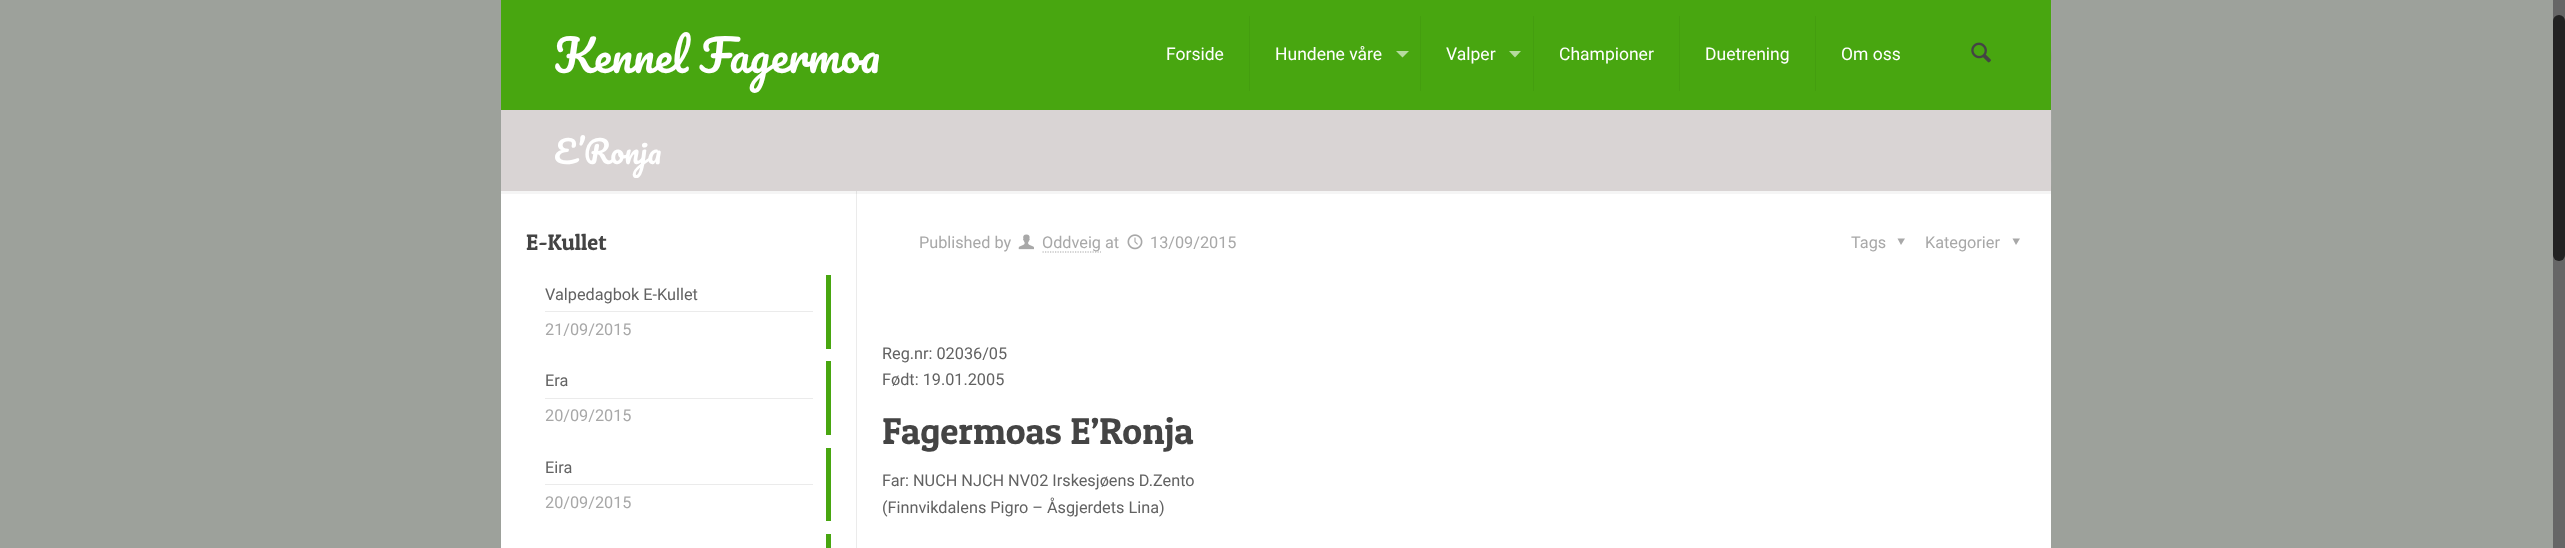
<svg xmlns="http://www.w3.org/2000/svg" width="2565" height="548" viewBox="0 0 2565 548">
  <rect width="100%" height="100%" fill="#9da19b"/>
  <path d="M501 191h1550v357H501z" fill="#fff"/>
  <image x="2051" y="0" width="1" height="191" href="img/1.png"/>
  <path d="M501 0h1550v110H501z" fill="#48a610"/>
  <path d="M1249 16h1v75H1249z" fill="#449e0f"/>
  <path d="M1420 16h1v75H1420z" fill="#449e0f"/>
  <path d="M1396 51H1409L1402.5 57.5Z" fill="#b6db9f"/>
  <path d="M1533 16h1v75H1533z" fill="#449e0f"/>
  <path d="M1509 51H1521L1515 57.5Z" fill="#b6db9f"/>
  <path d="M1679 16h1v75H1679z" fill="#449e0f"/>
  <path d="M1815 16h1v75H1815z" fill="#449e0f"/>
  <image x="1971" y="42" width="20" height="21" href="img/2.png"/>
  <path d="M501 110h1550v81H501z" fill="#d9d4d4"/>
  <path d="M856 191h1v357H856z" fill="#ebebeb"/>
  <path d="M501 191h1550v3H501z" fill="#0000000a"/>
  <path d="M545 311h268v1H545z" fill="#ebebeb"/>
  <path d="M826 275h5v74H826z" fill="#48a610"/>
  <path d="M545 398h268v1H545z" fill="#ebebeb"/>
  <path d="M826 361h5v74H826z" fill="#48a610"/>
  <path d="M545 484h268v1H545z" fill="#ebebeb"/>
  <path d="M826 448h5v73H826z" fill="#48a610"/>
  <path d="M826 534h5v14H826z" fill="#48a610"/>
  <image x="1018" y="234" width="16" height="16" href="img/3.png"/>
  <path d="M1042.5 252H1101" fill="none" stroke="#a8a8a8" stroke-width="1.2" stroke-dasharray="1.25 1.25"/>
  <image x="1127" y="234" width="16" height="16" href="img/4.png"/>
  <path d="M1905 238.5L1901 245L1897.5 238.5Z" fill="#a8a8a8"/>
  <path d="M2020 238.5L2016 245L2012.5 238.5Z" fill="#a8a8a8"/>
  <path d="M2553 0h12v548H2553z" fill="#666"/>
  <rect x="2553" y="15" width="12" height="246" rx="6" fill="#222"/>
  <text x="554" y="73" font-family="Pacifico" font-size="43.75" fill="#fff">Kennel Fagermoa</text>
  <g font-family="Roboto" font-size="17.5" fill="#fff">
    <text x="1166" y="60">Forside</text>
    <text x="1275" y="60">Hundene våre</text>
    <text x="1446" y="60">Valper</text>
    <text x="1559" y="60">Championer</text>
    <text x="1705" y="60">Duetrening</text>
    <text x="1841" y="60">Om oss</text>
  </g>
  <text x="554" y="164" font-family="Pacifico" font-size="31" fill="#fff">E’Ronja</text>
  <text x="526" y="250" font-family="Patua One" font-size="22.5" fill="#444">E-Kullet</text>
  <text x="545" y="300" font-family="Roboto" font-size="16.25" fill="#626262">Valpedagbok E-Kullet</text>
  <text x="545" y="335" font-family="Roboto" font-size="16.25" fill="#a8a8a8">21/09/2015</text>
  <text x="545" y="386" font-family="Roboto" font-size="16.25" fill="#626262">Era</text>
  <text x="545" y="421" font-family="Roboto" font-size="16.25" fill="#a8a8a8">20/09/2015</text>
  <text x="545" y="473" font-family="Roboto" font-size="16.25" fill="#626262">Eira</text>
  <g font-family="Roboto" font-size="16.25" fill="#a8a8a8">
    <text x="545" y="508">20/09/2015</text>
    <text x="919" y="248">Published by</text>
    <text x="1042" y="248">Oddveig at</text>
    <text x="1150" y="248">13/09/2015</text>
    <text x="1851" y="248">Tags</text>
    <text x="1925" y="248">Kategorier</text>
  </g>
  <g font-family="Roboto" font-size="16.25" fill="#626262">
    <text x="882" y="359">Reg.nr: 02036/05</text>
    <text x="882" y="385">Født: 19.01.2005</text>
  </g>
  <text x="882" y="444" font-family="Patua One" font-size="37.5" fill="#444">Fagermoas E’Ronja</text>
  <g font-family="Roboto" font-size="16.25" fill="#626262">
    <text x="882" y="486">Far: NUCH NJCH NV02 Irskesjøens D.Zento</text>
    <text x="882" y="513">(Finnvikdalens Pigro – Åsgjerdets Lina)</text>
  </g>
</svg>
